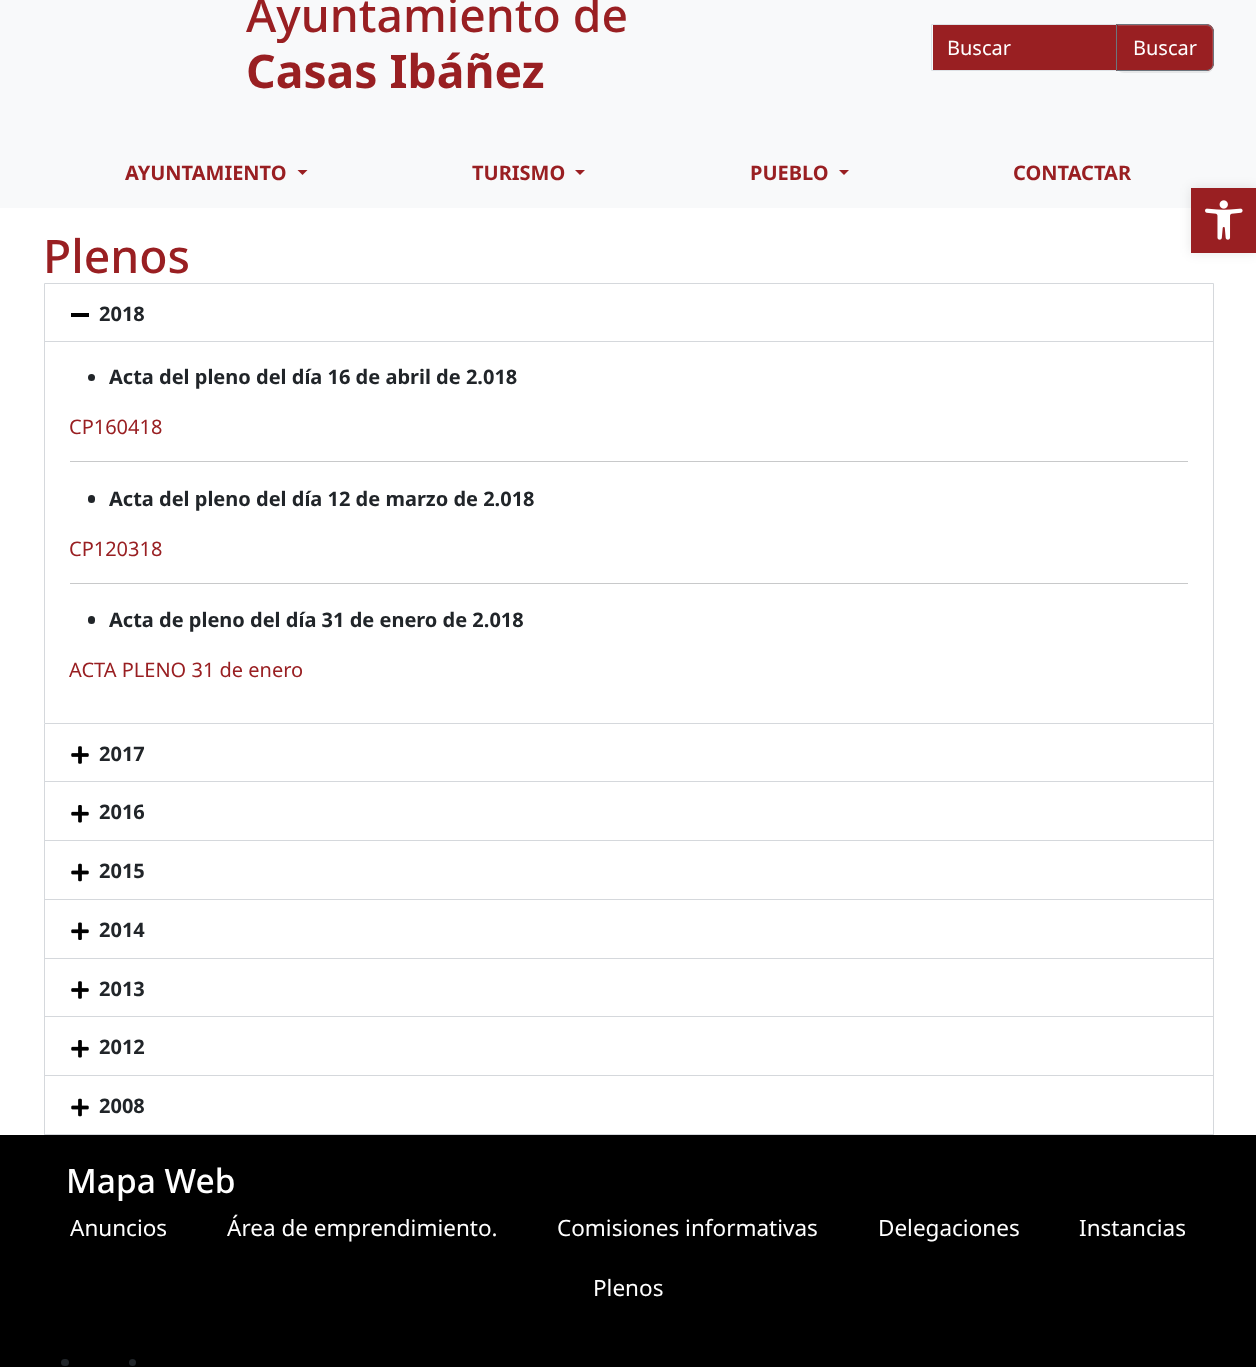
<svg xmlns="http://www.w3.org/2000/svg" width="1256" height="1367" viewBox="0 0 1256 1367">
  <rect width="100%" height="100%" fill="#fff"/>
  <path d="M0 0h1256v208H0z" fill="#f8f9fa"/>
  <path d="M933 25h183v45H933z" fill="#991f22"/>
  <path d="M931.5 24.5h186v46H931.5z" fill="none" stroke="#dee2e6"/>
  <rect x="1116" y="25" width="98" height="48" rx="8" fill="#00000012" filter="blur(0.5px)"/>
  <path d="M1116 24H1206C1210.5 24 1214 27.5 1214 32V63C1214 67.5 1210.5 71 1206 71H1116Z" fill="#991f22"/>
  <path d="M1118 26H1206C1210 26 1212 29 1212 32V65C1212 66 1212 67 1211 68C1212 67 1213 66 1213 64V31C1213 28 1210 25 1207 25H1118Z" fill="#a84143"/>
  <path d="M1116.5 24.5H1206C1210 24.5 1213.5 28 1213.5 32V63C1213.5 67 1210 70.5 1206 70.5H1116.5Z" fill="none" stroke="#6c757d"/>
  <path d="M297.5 170H307.5L302.5 175Z" fill="#991f22"/>
  <path d="M575 170H585L580 175Z" fill="#991f22"/>
  <path d="M839 170H849L844 175Z" fill="#991f22"/>
  <path d="M44.5 283.5h1169v440H44.5z" fill="none" stroke="#d5d8dc"/>
  <path d="M71 313h18v4H71z" fill="#000"/>
  <path d="M45 341h1168v1H45z" fill="#d5d8dc"/>
  <circle cx="91.5" cy="377.5" r="3.5" fill="#212529"/>
  <path d="M70 461h1118v1H70z" fill="#c8c9ca"/>
  <rect x="88" y="495" width="7" height="8" rx="3.5" fill="#212529"/>
  <path d="M70 583h1118v1H70z" fill="#c8c9ca"/>
  <rect x="88" y="616" width="7" height="8" rx="3.5" fill="#212529"/>
  <path d="M1213 724h1v411H1213z" fill="#d5d8dc"/>
  <path d="M44 781h1170v1H44z" fill="#d5d8dc"/>
  <path d="M44 724h1v59H44z" fill="#d5d8dc"/>
  <image x="71" y="746" width="18" height="18" href="img/1.png"/>
  <path d="M44 840h1170v1H44z" fill="#d5d8dc"/>
  <path d="M44 783h1v58H44z" fill="#d5d8dc"/>
  <image x="71" y="805" width="18" height="18" href="img/2.png"/>
  <path d="M44 899h1170v1H44z" fill="#d5d8dc"/>
  <path d="M44 841h1v59H44z" fill="#d5d8dc"/>
  <image x="71" y="863" width="18" height="19" href="img/3.png"/>
  <path d="M44 958h1170v1H44z" fill="#d5d8dc"/>
  <path d="M44 900h1v59H44z" fill="#d5d8dc"/>
  <image x="71" y="922" width="18" height="18" href="img/4.png"/>
  <path d="M44 1016h1170v1H44z" fill="#d5d8dc"/>
  <path d="M44 959h1v59H44z" fill="#d5d8dc"/>
  <image x="71" y="981" width="18" height="18" href="img/1.png"/>
  <path d="M44 1075h1170v1H44z" fill="#d5d8dc"/>
  <path d="M44 1018h1v58H44z" fill="#d5d8dc"/>
  <image x="71" y="1040" width="18" height="18" href="img/2.png"/>
  <path d="M44 1134h1170v1H44z" fill="#d5d8dc"/>
  <path d="M44 1076h1v59H44z" fill="#d5d8dc"/>
  <image x="71" y="1098" width="18" height="19" href="img/3.png"/>
  <path d="M0 1135h1256v232H0z" fill="#000"/>
  <rect x="61" y="1359" width="8" height="7" rx="3.5" fill="#212529"/>
  <circle cx="132.5" cy="1362.5" r="3.5" fill="#212529"/>
  <path d="M1191 188h65v65H1191z" fill="#0000001a" filter="blur(6px)"/>
  <path d="M1191 188h65v65H1191z" fill="#991f22"/>
  <image x="1205" y="200" width="38" height="40" href="img/5.png"/>
  <text x="246" y="32" font-family="Noto Sans" font-size="46.25" font-weight="500" fill="#991f22">Ayuntamiento de</text>
  <text x="246" y="88" font-family="Noto Sans" font-size="46.25" font-weight="bold" fill="#991f22">Casas Ibáñez</text>
  <g font-family="Noto Sans" font-size="20" fill="#fff">
    <text x="947" y="55">Buscar</text>
    <text x="1133" y="55">Buscar</text>
  </g>
  <g font-family="Noto Sans" font-size="20" font-weight="bold" fill="#991f22">
    <text x="125" y="180">AYUNTAMIENTO</text>
    <text x="472" y="180">TURISMO</text>
    <text x="750" y="180">PUEBLO</text>
    <text x="1013" y="180">CONTACTAR</text>
  </g>
  <text x="43" y="273" font-family="Noto Sans" font-size="46.25" font-weight="500" fill="#991f22">Plenos</text>
  <g font-family="Noto Sans" font-size="20" font-weight="bold" fill="#212529">
    <text x="99" y="321">2018</text>
    <text x="109" y="384">Acta del pleno del día 16 de abril de 2.018</text>
  </g>
  <text x="69" y="434" font-family="Noto Sans" font-size="20" fill="#991f22">CP160418</text>
  <text x="109" y="506" font-family="Noto Sans" font-size="20" font-weight="bold" fill="#212529">Acta del pleno del día 12 de marzo de 2.018</text>
  <text x="69" y="556" font-family="Noto Sans" font-size="20" fill="#991f22">CP120318</text>
  <text x="109" y="627" font-family="Noto Sans" font-size="20" font-weight="bold" fill="#212529">Acta de pleno del día 31 de enero de 2.018</text>
  <text x="69" y="677" font-family="Noto Sans" font-size="20" fill="#991f22">ACTA PLENO 31 de enero</text>
  <g font-family="Noto Sans" font-size="20" font-weight="bold" fill="#212529">
    <text x="99" y="761">2017</text>
    <text x="99" y="819">2016</text>
    <text x="99" y="878">2015</text>
    <text x="99" y="937">2014</text>
    <text x="99" y="996">2013</text>
    <text x="99" y="1054">2012</text>
    <text x="99" y="1113">2008</text>
  </g>
  <text x="66" y="1193" font-family="Noto Sans" font-size="33.5" font-weight="500" fill="#fff">Mapa Web</text>
  <g font-family="Noto Sans" font-size="22.5" fill="#fff">
    <text x="70" y="1236">Anuncios</text>
    <text x="227" y="1236">Área de emprendimiento.</text>
    <text x="557" y="1236">Comisiones informativas</text>
    <text x="878" y="1236">Delegaciones</text>
    <text x="1079" y="1236">Instancias</text>
    <text x="593" y="1296">Plenos</text>
  </g>
</svg>
